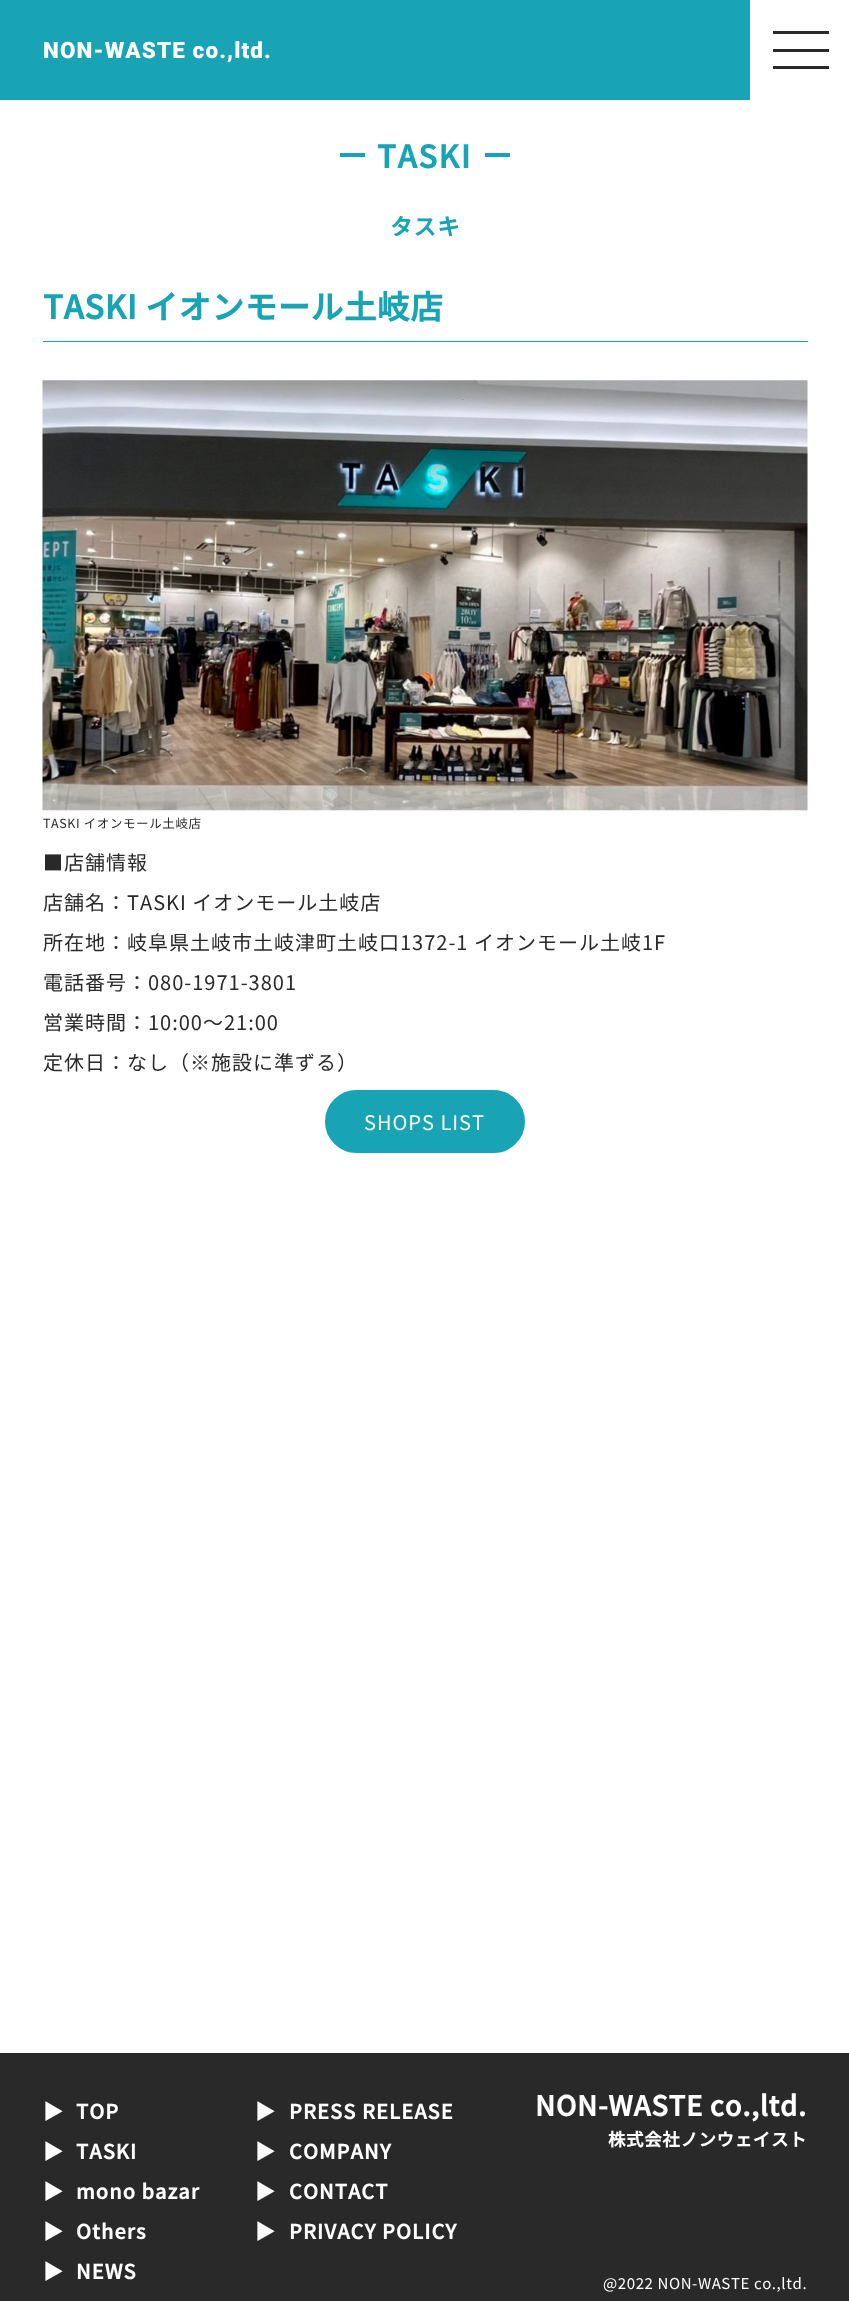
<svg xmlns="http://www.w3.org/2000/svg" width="849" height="2301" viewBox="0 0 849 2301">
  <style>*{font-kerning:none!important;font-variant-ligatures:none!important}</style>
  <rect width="100%" height="100%" fill="#fff"/>
  <path d="M0 0h750v100H0z" fill="#19a4b6"/>
  <path d="M773 31h56v3H773z" fill="#292929"/>
  <path d="M773 49h56v3H773z" fill="#292929"/>
  <path d="M773 66h56v3H773z" fill="#292929"/>
  <path d="M340 153h25v4H340z" fill="#19a4b6"/>
  <path d="M485 153h25v4H485z" fill="#19a4b6"/>
  <path d="M43 341h765v1H43z" fill="#19a4b6"/>
  <image x="42" y="380" width="766" height="431" href="img/1.png"/>
  <rect x="327" y="1092" width="196" height="59" rx="29.5" fill="#19a4b6" stroke="#19a4b6" stroke-width="4"/>
  <path d="M0 2053h849v248H0z" fill="#292929"/>
  <text x="43" y="58" font-family="Roboto" font-size="22.5" font-weight="900" letter-spacing="1.1" fill="#fff">NON-WASTE co.,ltd.</text>
  <text x="377" y="168" font-family="Noto Sans JP" font-size="31" font-weight="bold" letter-spacing="1.5" fill="#19a4b6">TASKI</text>
  <text x="390" y="235" font-family="Noto Sans JP" font-size="22.5" font-weight="bold" letter-spacing="1.1" fill="#19a4b6">タスキ</text>
  <text x="43" y="319" font-family="Noto Sans JP" font-size="32.5" font-weight="bold" letter-spacing="0.6" fill="#19a4b6">TASKI イオンモール土岐店</text>
  <text x="43" y="828" font-family="Noto Sans JP" font-size="12.5" letter-spacing="0.6" fill="#292929">TASKI イオンモール土岐店</text>
  <g font-family="Noto Sans JP" font-size="20" letter-spacing="1" fill="#292929">
    <text x="43" y="870">■店舗情報</text>
    <text x="43" y="910">店舗名：TASKI イオンモール土岐店</text>
    <text x="43" y="950">所在地：岐阜県土岐市土岐津町土岐口1372-1 イオンモール土岐1F</text>
    <text x="43" y="990">電話番号：080-1971-3801</text>
    <text x="43" y="1030">営業時間：10:00～21:00</text>
    <text x="43" y="1070">定休日：なし（※施設に準ずる）</text>
  </g>
  <text x="364" y="1130" font-family="Noto Sans JP" font-size="20" letter-spacing="1" fill="#fff">SHOPS LIST</text>
  <g font-family="Noto Sans JP" font-size="20" font-weight="bold" letter-spacing="1" fill="#fff">
    <text x="43" y="2119">▶</text>
    <text x="76" y="2119">TOP</text>
    <text x="43" y="2159">▶</text>
    <text x="76" y="2159">TASKI</text>
    <text x="43" y="2199">▶</text>
    <text x="76" y="2199">mono bazar</text>
    <text x="43" y="2239">▶</text>
    <text x="76" y="2239">Others</text>
    <text x="43" y="2279">▶</text>
    <text x="76" y="2279">NEWS</text>
    <text x="255" y="2119">▶</text>
    <text x="289" y="2119">PRESS RELEASE</text>
    <text x="255" y="2159">▶</text>
    <text x="289" y="2159">COMPANY</text>
    <text x="255" y="2199">▶</text>
    <text x="289" y="2199">CONTACT</text>
    <text x="255" y="2239">▶</text>
    <text x="289" y="2239">PRIVACY POLICY</text>
  </g>
  <text x="535" y="2116" font-family="Noto Sans JP" font-size="27.5" font-weight="bold" letter-spacing="0.6" fill="#fff">NON-WASTE co.,ltd.</text>
  <text x="608" y="2146" font-family="Noto Sans JP" font-size="17.5" font-weight="bold" letter-spacing="0.6" fill="#fff">株式会社ノンウェイスト</text>
  <text x="603" y="2289" font-family="Noto Sans JP" font-size="15" letter-spacing="0.6" fill="#fff">@2022 NON-WASTE co.,ltd.</text>
</svg>
